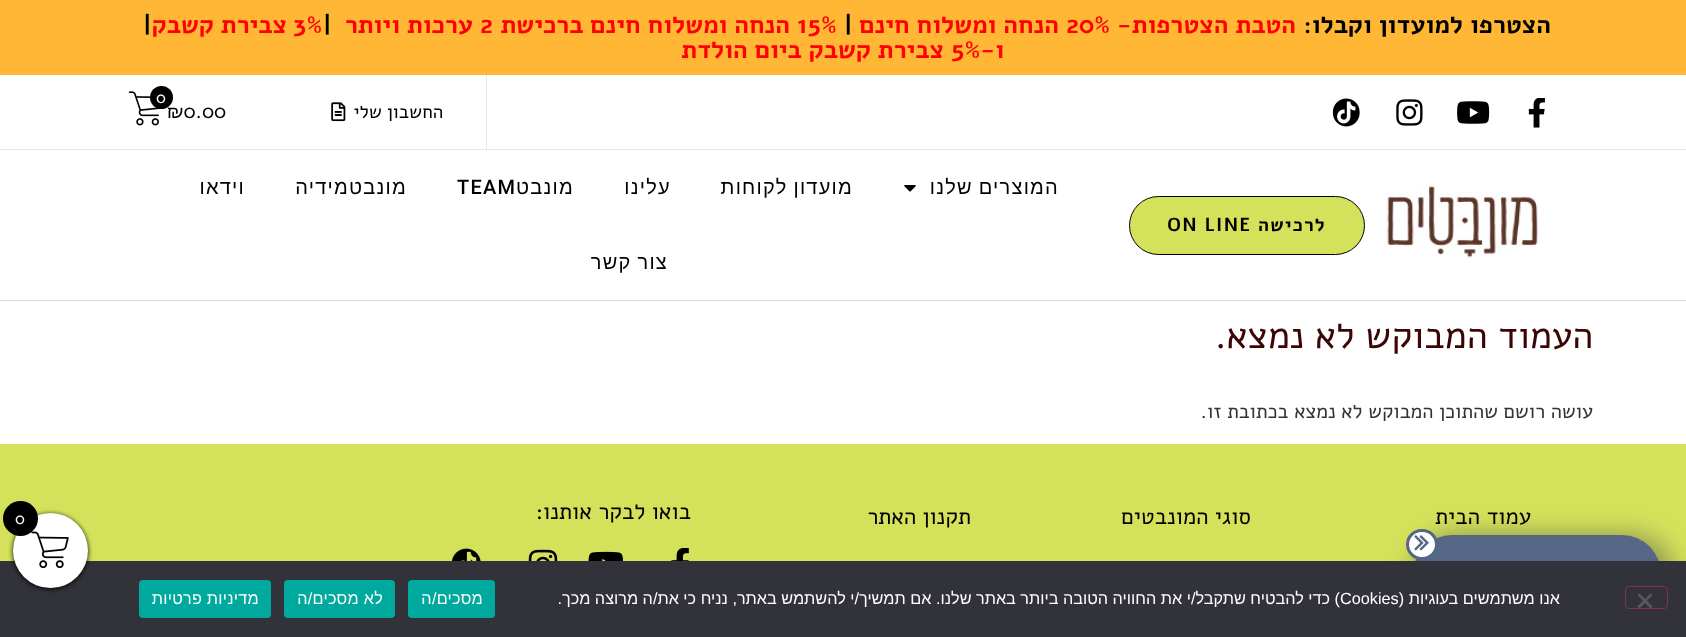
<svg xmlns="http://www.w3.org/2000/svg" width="1686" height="637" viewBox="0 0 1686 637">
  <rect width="100%" height="100%" fill="#fff"/>
  <path d="M0 0h1686v75H0z" fill="#ffb735"/>
  <path d="M0 149h1686v1H0z" fill="#e9e5e5"/>
  <image x="1528" y="98" width="17" height="30" href="img/1.png"/>
  <image x="1457" y="101" width="33" height="23" href="img/2.png"/>
  <image x="1396" y="99" width="27" height="27" href="img/3.png"/>
  <image x="1332" y="98" width="28" height="29" href="img/4.png"/>
  <path d="M486 75h1v74H486z" fill="#e9e5e5"/>
  <image x="331" y="102" width="15" height="20" href="img/5.png"/>
  <image x="128" y="91" width="33" height="35" href="img/6.png"/>
  <circle cx="161.5" cy="97.5" r="11.5" fill="#000"/>
  <path d="M0 300h1686v1H0z" fill="#d8d8d8"/>
  <image x="1383" y="183" width="156" height="76" href="img/7.png"/>
  <rect x="1129.5" y="196.5" width="235" height="58" rx="29" fill="#d4e25b" stroke="#000"/>
  <image x="904" y="185" width="12" height="7" href="img/8.png"/>
  <path d="M0 444h1686v117H0z" fill="#d4e25b"/>
  <rect x="1411" y="534" width="264" height="92" rx="46" fill="#42424278" filter="blur(12.5px)"/>
  <rect x="1413" y="535" width="248" height="78" rx="39" fill="#566785"/>
  <rect x="1407.5" y="530.5" width="29" height="28" rx="14" fill="#fff" stroke="#566785" stroke-width="3"/>
  <image x="1414" y="535" width="15" height="16" href="img/9.png"/>
  <image x="671" y="548" width="18" height="13" href="img/10.png"/>
  <image x="588" y="551" width="35" height="10" href="img/11.png"/>
  <image x="528" y="549" width="30" height="12" href="img/12.png"/>
  <image x="452" y="548" width="29" height="13" href="img/13.png"/>
  <path d="M0 561h1686v76H0z" fill="#32323a"/>
  <rect x="13" y="514" width="75" height="75" rx="37.5" fill="#000" filter="blur(2.5px)"/>
  <circle cx="50.5" cy="550.5" r="37.5" fill="#fff"/>
  <image x="31" y="531" width="38" height="38" href="img/14.png"/>
  <circle cx="20.5" cy="518.5" r="17.5" fill="#000"/>
  <rect x="1625.5" y="586.5" width="42" height="22" rx="3.5" fill="none" stroke="#7f3350"/>
  <path d="M1650.5 593.5L1652.5 595L1639.5 608.5L1637.5 606.5Z" fill="#59595d"/>
  <path d="M1637.5 595L1639.5 593.5L1652.5 606.5L1650.5 608.5Z" fill="#59595d"/>
  <rect x="408" y="580" width="87" height="38" rx="4" fill="#00a99d"/>
  <rect x="284" y="580" width="111" height="38" rx="4" fill="#00a99d"/>
  <rect x="139" y="580" width="132" height="38" rx="4" fill="#00a99d"/>
  <text x="1551" y="33" font-family="Alef" font-size="25" font-weight="bold" direction="rtl" fill="#000">הצטרפו למועדון וקבלו:</text>
  <text x="1296" y="33" font-family="Alef" font-size="25" font-weight="bold" direction="rtl" fill="#f00">הטבת הצטרפות-</text>
  <text x="1066" y="33" font-family="Alef" font-size="25" font-weight="bold" fill="#f00">20%</text>
  <text x="1059" y="33" font-family="Alef" font-size="25" font-weight="bold" direction="rtl" fill="#f00">הנחה ומשלוח חינם</text>
  <text x="844" y="33" font-family="Alef" font-size="25" font-weight="bold" fill="#000">|</text>
  <text x="797" y="33" font-family="Alef" font-size="25" font-weight="bold" fill="#f00">15%</text>
  <text x="790" y="33" font-family="Alef" font-size="25" font-weight="bold" direction="rtl" fill="#f00">הנחה ומשלוח חינם ברכישת</text>
  <text x="480" y="33" font-family="Alef" font-size="25" font-weight="bold" fill="#f00">2</text>
  <text x="473" y="33" font-family="Alef" font-size="25" font-weight="bold" direction="rtl" fill="#f00">ערכות ויותר</text>
  <text x="323" y="33" font-family="Alef" font-size="25" font-weight="bold" fill="#000">|</text>
  <text x="293" y="33" font-family="Alef" font-size="25" font-weight="bold" fill="#f00">3%</text>
  <text x="287" y="33" font-family="Alef" font-size="25" font-weight="bold" direction="rtl" fill="#f00">צבירת קשבק</text>
  <text x="143" y="33" font-family="Alef" font-size="25" font-weight="bold" fill="#000">|</text>
  <text x="1004" y="58" font-family="Alef" font-size="25" font-weight="bold" direction="rtl" fill="#f00">ו-</text>
  <text x="951" y="58" font-family="Alef" font-size="25" font-weight="bold" fill="#f00">5%</text>
  <text x="944" y="58" font-family="Alef" font-size="25" font-weight="bold" direction="rtl" fill="#f00">צבירת קשבק ביום הולדת</text>
  <text x="443" y="118" font-family="Alef" font-size="18.75" direction="rtl" fill="#000">החשבון שלי</text>
  <text x="156" y="103" font-family="Alef" font-size="16.25" fill="#fff">0</text>
  <text x="167" y="118" font-family="Alef" font-size="20" fill="#000">₪0.00</text>
  <text x="1326" y="231" font-family="Alef" font-size="18.75" font-weight="bold" letter-spacing="1.25" direction="rtl" fill="#000">לרכישה</text>
  <text x="1167" y="231" font-family="Alef" font-size="18.75" font-weight="bold" letter-spacing="1.25" fill="#000">ON LINE</text>
  <g font-family="Liberation Sans" font-size="20" letter-spacing="1.25" direction="rtl" fill="#000">
    <text x="1059" y="194" word-spacing="-1">המוצרים שלנו</text>
    <text x="853" y="194" word-spacing="-1">מועדון לקוחות</text>
    <text x="671" y="194">עלינו</text>
    <text x="574" y="194">מונבט</text>
  </g>
  <text x="457" y="194" font-family="Roboto" font-size="20" font-weight="500" letter-spacing="1.25" fill="#000">TEAM</text>
  <g font-family="Liberation Sans" font-size="20" letter-spacing="1.25" direction="rtl" fill="#000">
    <text x="407" y="194">מונבטמידיה</text>
    <text x="245" y="194">וידאו</text>
    <text x="668" y="269" word-spacing="-1">צור קשר</text>
  </g>
  <text x="1593" y="348" font-family="Alef" font-size="37.5" direction="rtl" fill="#3b0503">העמוד המבוקש לא נמצא.</text>
  <text x="1593" y="418" font-family="Alef" font-size="20" direction="rtl" fill="#333">עושה רושם שהתוכן המבוקש לא נמצא בכתובת זו.</text>
  <g font-family="Alef" font-size="22.5" direction="rtl" fill="#000">
    <text x="1531" y="524">עמוד הבית</text>
    <text x="1251" y="524">סוגי המונבטים</text>
    <text x="971" y="524">תקנון האתר</text>
    <text x="691" y="519">בואו לבקר אותנו:</text>
  </g>
  <text x="15" y="524" font-family="Alef" font-size="16.25" fill="#fff">0</text>
  <text x="1560" y="604" font-family="Liberation Sans" font-size="16.25" direction="rtl" fill="#fff">אנו משתמשים בעוגיות (</text>
  <text x="1340" y="604" font-family="Liberation Sans" font-size="16.25" fill="#fff">Cookies</text>
  <text x="1340" y="604" font-family="Liberation Sans" font-size="16.25" direction="rtl" fill="#fff">) כדי להבטיח שתקבל/י את החוויה הטובה ביותר באתר שלנו. אם תמשיך/י להשתמש באתר, נניח כי את/ה מרוצה מכך.</text>
  <g font-family="Liberation Sans" font-size="16.25" letter-spacing="0.25" direction="rtl" fill="#fff">
    <text x="483" y="604">מסכים/ה</text>
    <text x="383" y="604">לא מסכים/ה</text>
    <text x="259" y="604">מדיניות פרטיות</text>
  </g>
</svg>
